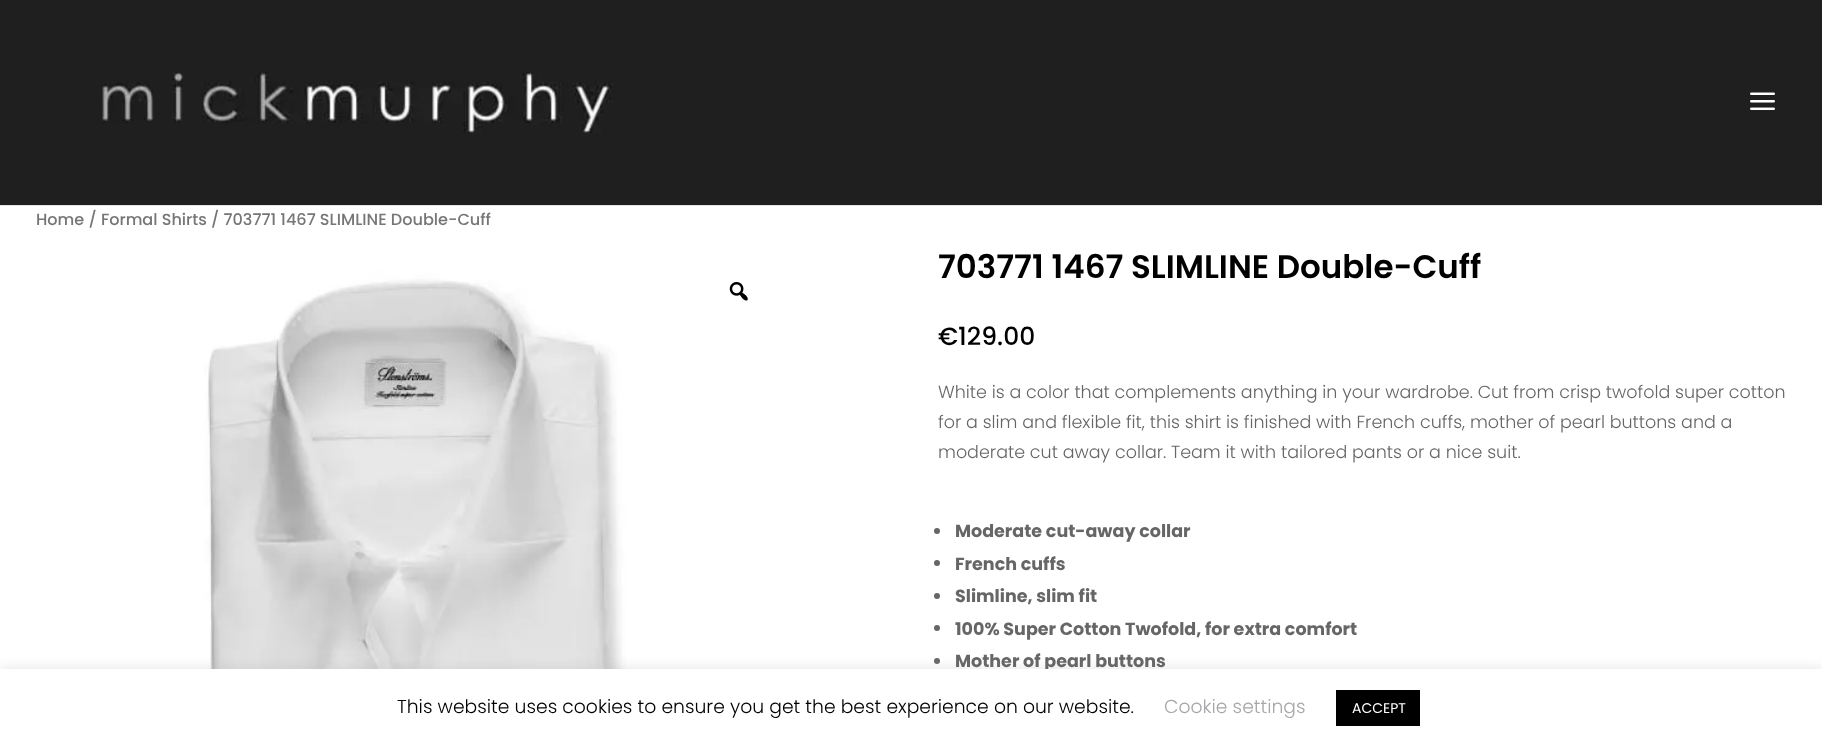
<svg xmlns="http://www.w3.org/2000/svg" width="1822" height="747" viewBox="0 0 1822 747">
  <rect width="100%" height="100%" fill="#fff"/>
  <path d="M0 205V206H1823V1H1822V205Z" fill="#e6e6e6"/>
  <path d="M0 0h1822v205H0z" fill="#1f1f1f"/>
  <image x="102" y="72" width="511" height="61" href="img/1.png"/>
  <image x="1750" y="92" width="25" height="18" href="img/2.png"/>
  <image x="36" y="251" width="590" height="418" href="img/3.png"/>
  <image x="729" y="282" width="19" height="19" href="img/4.png"/>
  <circle cx="937" cy="531" r="3" fill="#666"/>
  <circle cx="937" cy="563" r="3" fill="#666"/>
  <circle cx="937" cy="596" r="3" fill="#666"/>
  <circle cx="937" cy="628" r="3" fill="#666"/>
  <circle cx="937" cy="661" r="3" fill="#666"/>
  <path d="M0 668h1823v78H0z" fill="#acabab4d" filter="blur(6px)"/>
  <text x="36" y="225" font-family="Poppins" font-size="16.1" font-weight="500" fill="#767676">Home / Formal Shirts / 703771 1467 SLIMLINE Double-Cuff</text>
  <text x="938" y="278" font-family="Poppins" font-size="32.5" font-weight="600" fill="#000">703771 1467 SLIMLINE Double-Cuff</text>
  <text x="938" y="345" font-family="Poppins" font-size="25" font-weight="500" fill="#000">€129.00</text>
  <g font-family="Poppins" font-size="17.5" font-weight="300" fill="#666">
    <text x="938" y="398">White is a color that complements anything in your wardrobe. Cut from crisp twofold super cotton</text>
    <text x="938" y="428">for a slim and flexible fit, this shirt is finished with French cuffs, mother of pearl buttons and a</text>
    <text x="938" y="458">moderate cut away collar. Team it with tailored pants or a nice suit.</text>
  </g>
  <g font-family="Poppins" font-size="17.5" font-weight="bold" fill="#666">
    <text x="955" y="537">Moderate cut-away collar</text>
    <text x="955" y="570">French cuffs</text>
    <text x="955" y="602">Slimline, slim fit</text>
    <text x="955" y="635">100% Super Cotton Twofold, for extra comfort</text>
    <text x="955" y="667">Mother of pearl buttons</text>
  </g>
  <path d="M0 669h1822v78H0z" fill="#fff"/>
  <text x="397" y="713" font-family="Poppins" font-size="18.75" font-weight="300" fill="#000">This website uses cookies to ensure you get the best experience on our website.</text>
  <text x="1164" y="713" font-family="Poppins" font-size="18.75" font-weight="300" fill="#a6a7a9">Cookie settings</text>
  <path d="M1336 690h84v36H1336z" fill="#000"/>
  <text x="1352" y="713" font-family="Poppins" font-size="14" fill="#fff">ACCEPT</text>
</svg>
